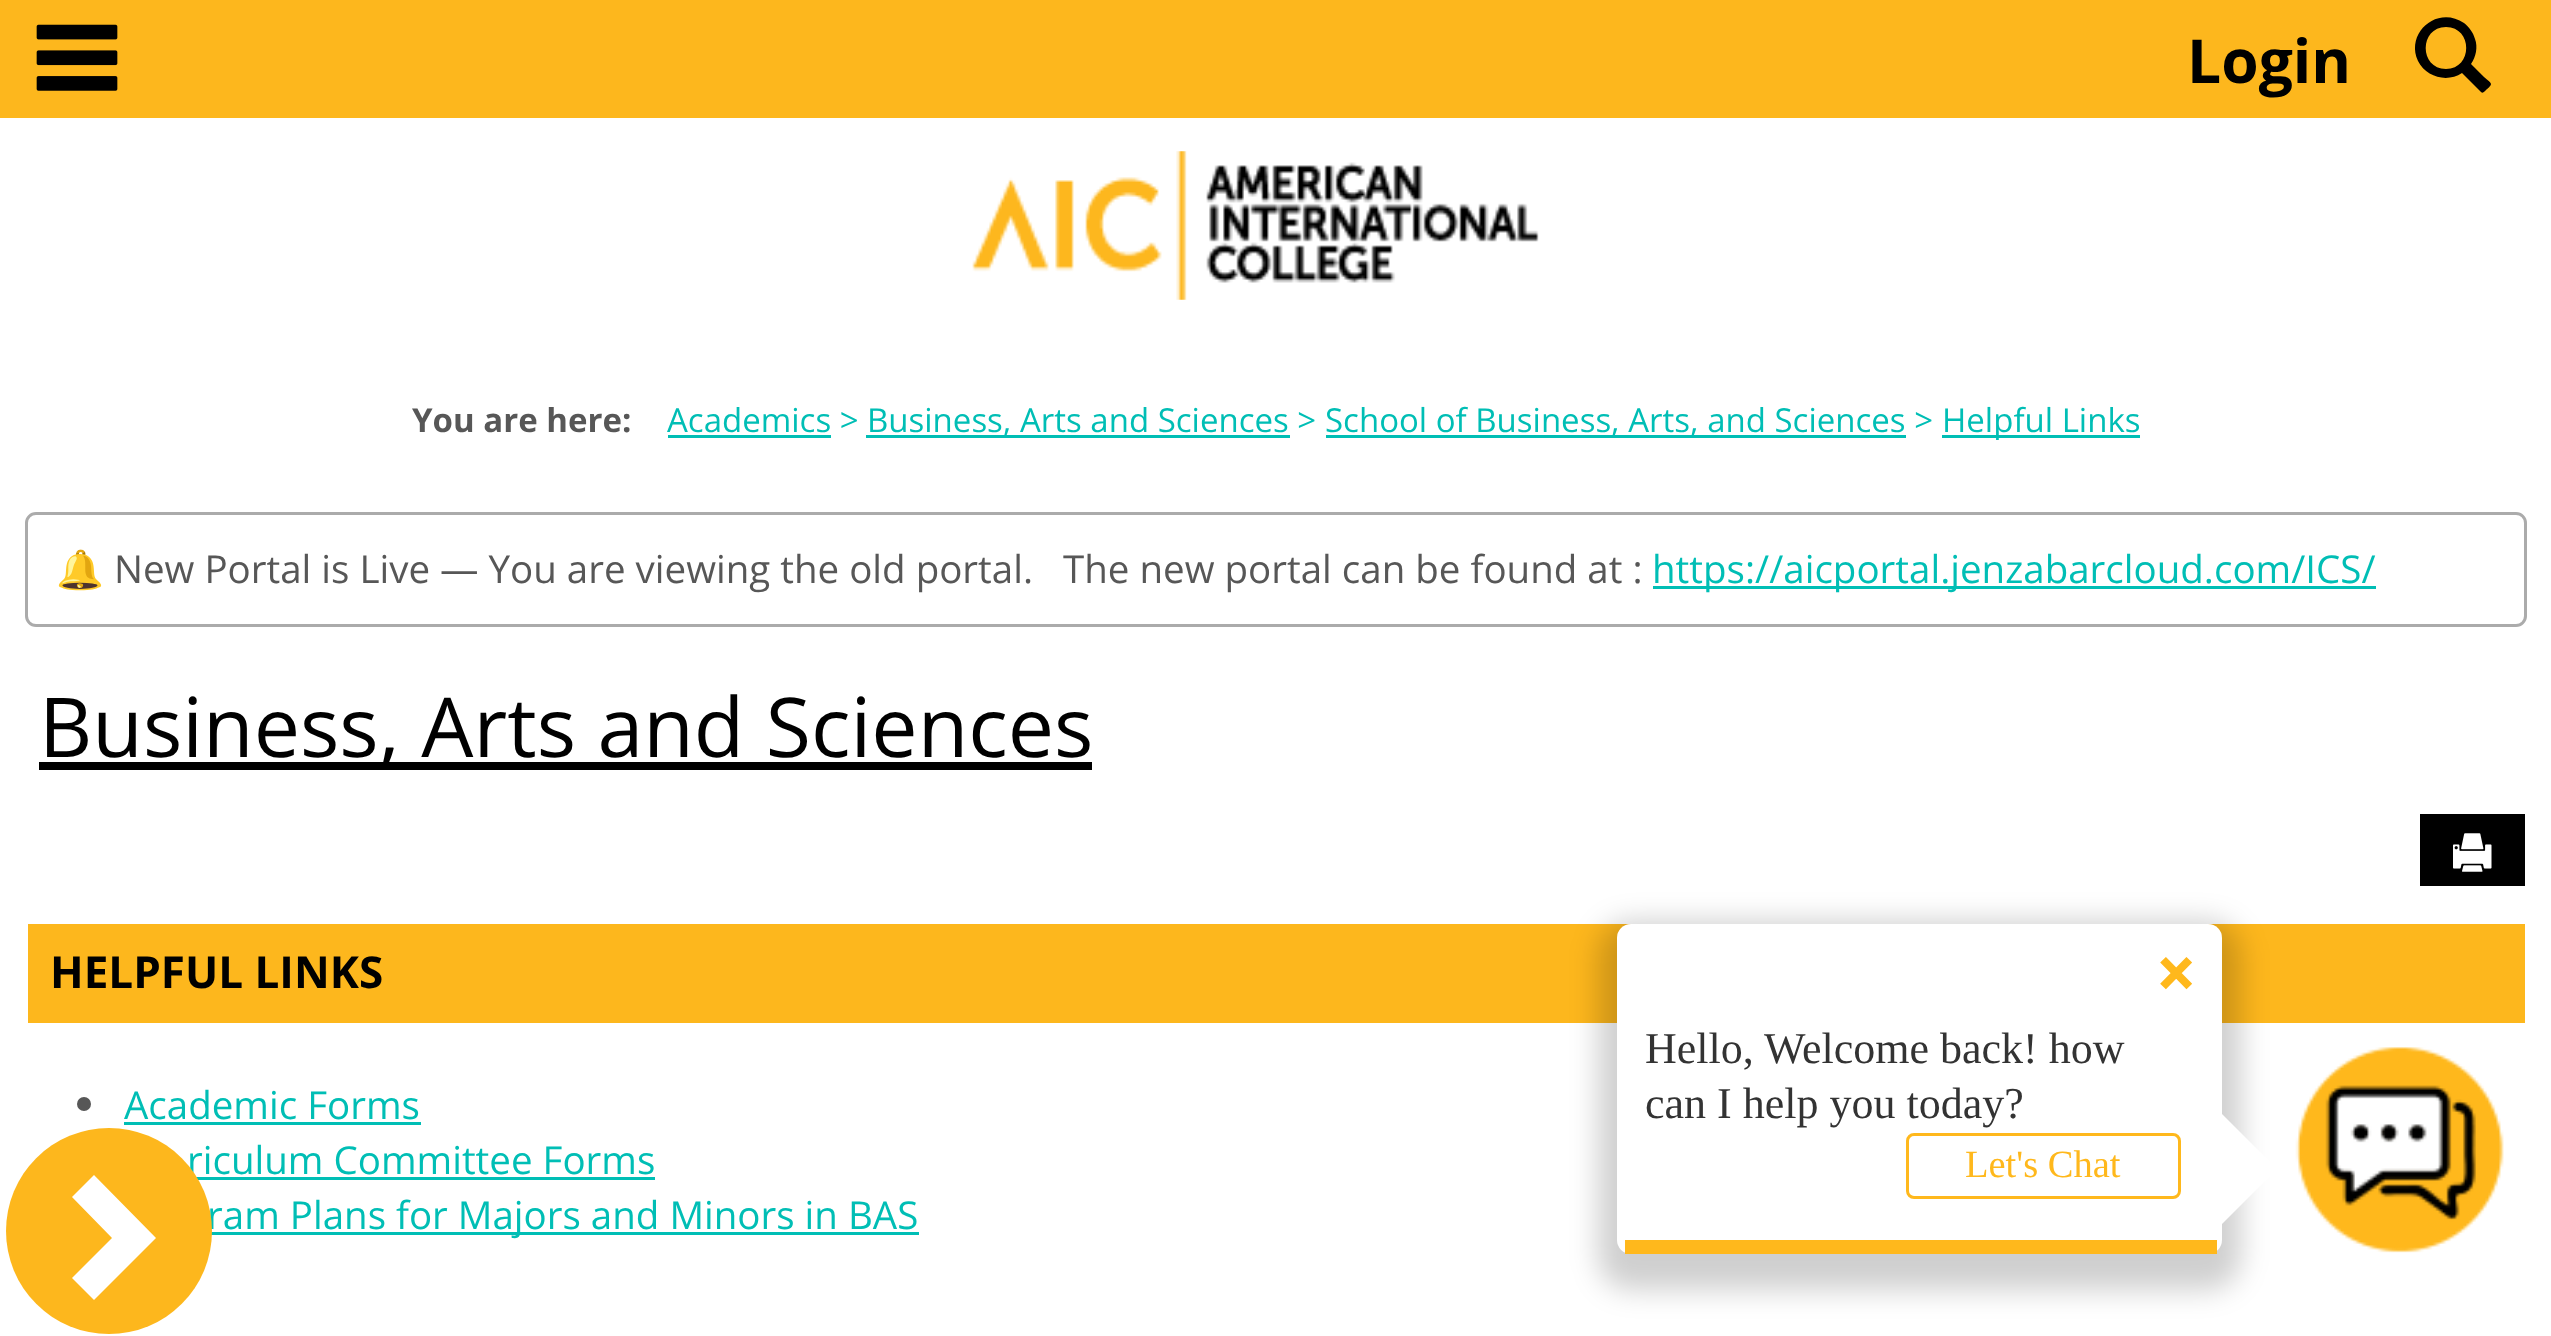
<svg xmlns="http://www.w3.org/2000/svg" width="2551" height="1336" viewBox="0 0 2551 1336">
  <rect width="100%" height="100%" fill="#fff"/>
  <path d="M0 0h2551v118H0z" fill="#fdb71d"/>
  <image x="36" y="24" width="82" height="67" href="img/1.png"/>
  <path d="M2481 92L2462 73C2447 83 2426 77 2418 61C2405 32 2438 5 2464 23C2469 27 2473 32 2475 39C2478 47 2476 57 2471 64L2484 77C2485 78 2491 82 2491 84C2491 86 2487 89 2486 90C2485 91 2483 94 2481 92ZM2446 69C2473 69 2473 27 2446 27C2419 27 2419 69 2446 69Z" fill="#000"/>
  <image x="972" y="151" width="567" height="149" href="img/2.png"/>
  <path d="M668 435h163v3H668z" fill="#00beb5"/>
  <path d="M866 435h424v3H866z" fill="#00beb5"/>
  <path d="M1326 435h580v3H1326z" fill="#00beb5"/>
  <path d="M1942 435h198v3H1942z" fill="#00beb5"/>
  <rect x="26.5" y="513.5" width="2499" height="112" rx="9.5" fill="none" stroke="#ababab" stroke-width="3"/>
  <path d="M1653 586h723v3H1653z" fill="#00beb5"/>
  <path d="M39 762h1053v8H39z" fill="#000"/>
  <path d="M2420 814h105v72H2420z" fill="#000"/>
  <image x="2453" y="833" width="39" height="39" href="img/3.png"/>
  <path d="M28 924h2497v99H28z" fill="#fdb71d"/>
  <circle cx="84" cy="1104" r="7" fill="#575757"/>
  <path d="M124 1122h297v3H124z" fill="#00beb5"/>
  <path d="M196 1177h459v3H196z" fill="#00beb5"/>
  <path d="M211 1232h708v3H211z" fill="#00beb5"/>
  <rect x="1598" y="921" width="643" height="369" rx="33" fill="#00000030" filter="blur(14px)"/>
  <rect x="1617" y="924" width="605" height="330" rx="14" fill="#fff"/>
  <path d="M1625 1240h592v14H1625z" fill="#ffb81c"/>
  <rect x="1907.5" y="1134.5" width="272" height="63" rx="6.5" fill="none" stroke="#ffb81c" stroke-width="3"/>
  <path d="M2222 1224V1114L2277 1169Z" fill="#fff"/>
  <image x="2295" y="1047" width="209" height="206" href="img/4.png"/>
  <text x="2187" y="83" font-family="Open Sans" font-size="60.5" font-weight="bold" fill="#000">Login</text>
  <text x="412" y="432" font-family="Open Sans" font-size="33" font-weight="bold" fill="#575757">You are here:</text>
  <g font-family="Open Sans" font-size="33" fill="#00beb5">
    <text x="667" y="432">Academics &gt;</text>
    <text x="867" y="432">Business, Arts and Sciences &gt;</text>
    <text x="1325" y="432">School of Business, Arts, and Sciences &gt;</text>
    <text x="1942" y="432">Helpful Links</text>
  </g>
  <text x="56" y="583" font-family="Noto Color Emoji" font-size="38.5" fill="#575757">🔔</text>
  <text x="114" y="583" font-family="Open Sans" font-size="38.5" fill="#575757" xml:space="preserve">New Portal is Live — You are viewing the old portal.   The new portal can be found at :</text>
  <text x="1652" y="583" font-family="Open Sans" font-size="38.5" fill="#00beb5">https://aicportal.jenzabarcloud.com/ICS/</text>
  <text x="39" y="757" font-family="Open Sans" font-size="82.5" fill="#000">Business, Arts and Sciences</text>
  <text x="50" y="988" font-family="Open Sans" font-size="44" font-weight="bold" fill="#000">HELPFUL LINKS</text>
  <g font-family="Open Sans" font-size="38.5" fill="#00beb5">
    <text x="124" y="1119">Academic Forms</text>
    <text x="187" y="1174">riculum Committee Forms</text>
    <text x="207" y="1229">ram Plans for Majors and Minors in BAS</text>
  </g>
  <circle cx="109" cy="1231" r="103" fill="#fdb71d"/>
  <path d="M94 1300L72 1278L112 1238L72 1197L94 1175L156 1238Z" fill="#fff"/>
  <text x="2158" y="996" font-family="Roboto" font-size="69" font-weight="bold" fill="#ffb81c">×</text>
  <g font-family="Liberation Serif" font-size="44" fill="#333">
    <text x="1645" y="1063">Hello, Welcome back! how</text>
    <text x="1645" y="1118">can I help you today?</text>
  </g>
  <text x="1965" y="1177" font-family="Liberation Serif" font-size="38.5" fill="#ffb81c">Let's Chat</text>
</svg>
